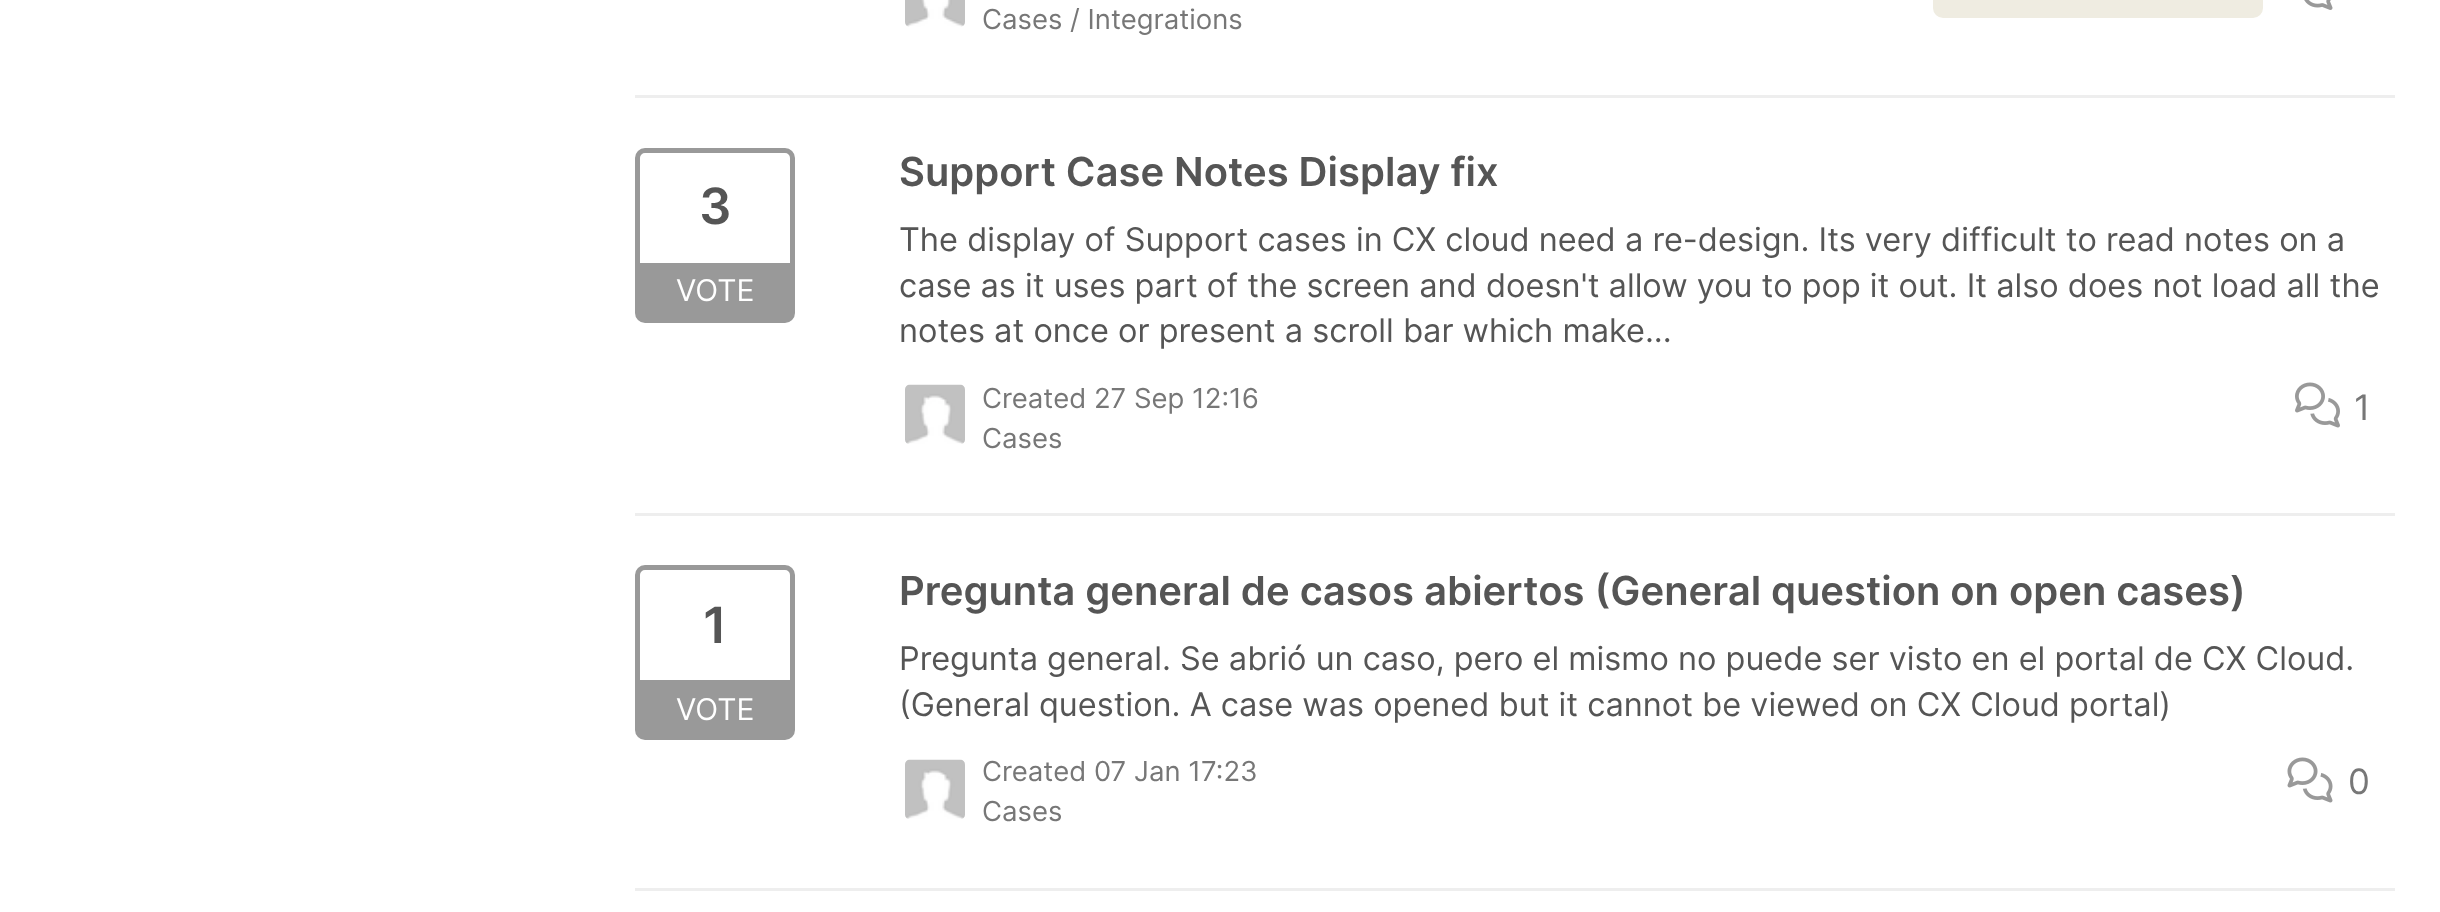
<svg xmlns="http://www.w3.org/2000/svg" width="2440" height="912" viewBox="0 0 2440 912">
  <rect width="100%" height="100%" fill="#fff"/>
  <path d="M635 95h1760v3H635z" fill="#eee"/>
  <image x="905" y="0" width="60" height="27" href="img/1.png"/>
  <rect x="1933" y="-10" width="330" height="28" rx="10" fill="#efece1"/>
  <image x="2304" y="0" width="29" height="10" href="img/2.png"/>
  <path d="M635 513h1760v3H635z" fill="#eee"/>
  <rect x="637.5" y="150.5" width="155" height="170" rx="7.5" fill="none" stroke="#999" stroke-width="5"/>
  <path d="M640 263h150v55H640z" fill="#999"/>
  <image x="905" y="384" width="60" height="60" href="img/3.png"/>
  <image x="2295" y="382" width="45" height="46" href="img/4.png"/>
  <path d="M635 888h1760v3H635z" fill="#eee"/>
  <rect x="637.5" y="567.5" width="155" height="170" rx="7.5" fill="none" stroke="#999" stroke-width="5"/>
  <path d="M640 680h150v55H640z" fill="#999"/>
  <image x="905" y="759" width="60" height="60" href="img/3.png"/>
  <image x="2287" y="757" width="46" height="46" href="img/5.png"/>
  <text x="982" y="29" font-family="Inter" font-size="27.5" fill="#777">Cases / Integrations</text>
  <text x="699" y="224" font-family="Inter" font-size="50" font-weight="600" fill="#555">3</text>
  <text x="676" y="301" font-family="Inter" font-size="30" fill="#fff">VOTE</text>
  <text x="899" y="186" font-family="Inter" font-size="40" font-weight="600" fill="#555">Support Case Notes Display fix</text>
  <g font-family="Inter" font-size="32.5" fill="#555">
    <text x="899" y="251">The display of Support cases in CX cloud need a re-design. Its very difficult to read notes on a</text>
    <text x="899" y="297">case as it uses part of the screen and doesn't allow you to pop it out. It also does not load all the</text>
    <text x="899" y="342">notes at once or present a scroll bar which make...</text>
  </g>
  <g font-family="Inter" font-size="27.5" fill="#777">
    <text x="982" y="408">Created 27 Sep 12:16</text>
    <text x="982" y="448">Cases</text>
  </g>
  <text x="2354" y="420" font-family="Inter" font-size="35" fill="#777">1</text>
  <text x="703" y="643" font-family="Inter" font-size="50" font-weight="600" fill="#555">1</text>
  <text x="676" y="720" font-family="Inter" font-size="30" fill="#fff">VOTE</text>
  <text x="899" y="605" font-family="Inter" font-size="40" font-weight="600" fill="#555">Pregunta general de casos abiertos (General question on open cases)</text>
  <g font-family="Inter" font-size="32.5" fill="#555">
    <text x="899" y="670">Pregunta general. Se abrió un caso, pero el mismo no puede ser visto en el portal de CX Cloud.</text>
    <text x="899" y="716">(General question. A case was opened but it cannot be viewed on CX Cloud portal)</text>
  </g>
  <g font-family="Inter" font-size="27.5" fill="#777">
    <text x="982" y="781">Created 07 Jan 17:23</text>
    <text x="982" y="821">Cases</text>
  </g>
  <text x="2348" y="794" font-family="Inter" font-size="35" fill="#777">0</text>
</svg>
